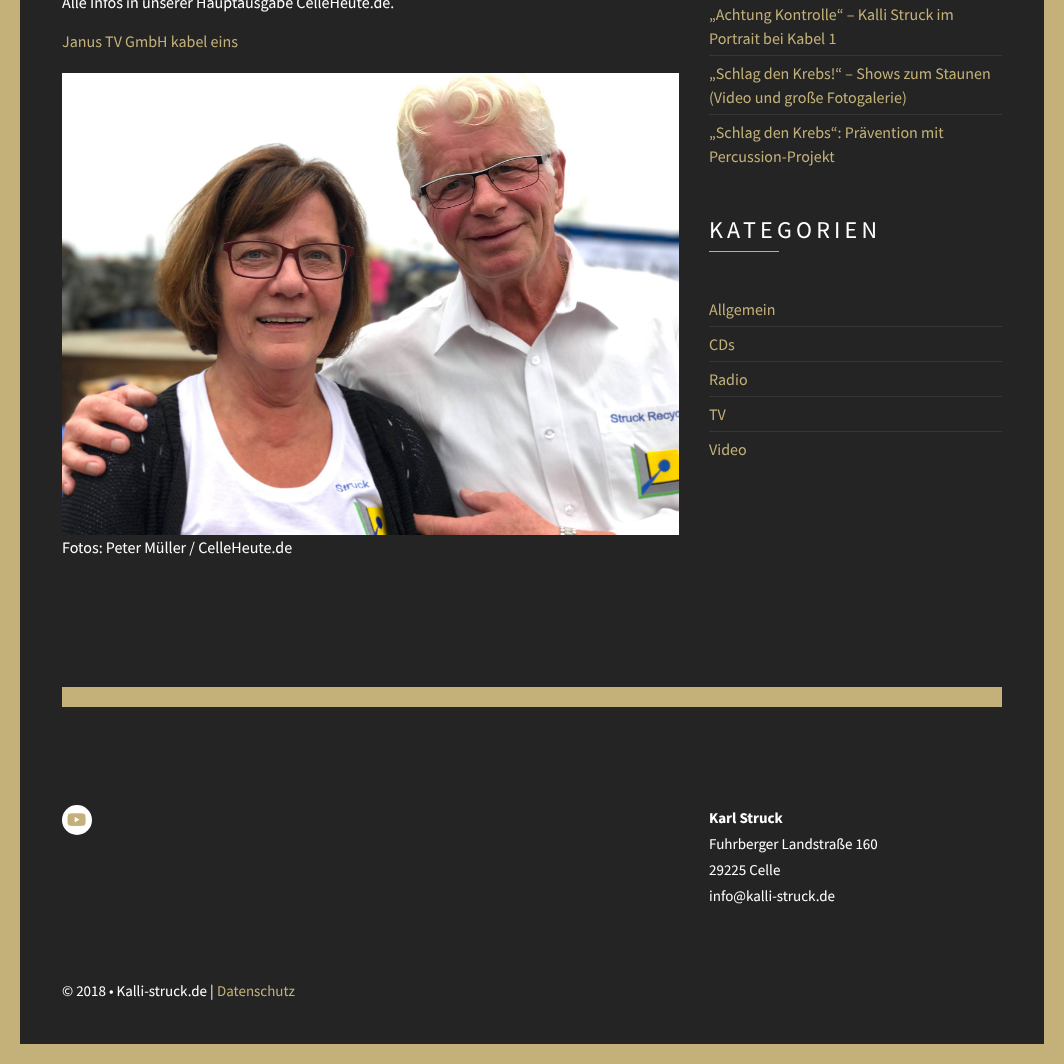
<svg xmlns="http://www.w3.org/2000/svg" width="1064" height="1064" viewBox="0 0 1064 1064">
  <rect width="100%" height="100%" fill="#242424"/>
  <path d="M10 -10h1044v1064H10z" fill="none" stroke="#c3b179" stroke-width="20"/>
  <image x="62" y="73" width="617" height="462" href="img/1.png"/>
  <path d="M709 55h293v1H709z" fill="#363636"/>
  <path d="M709 114h293v1H709z" fill="#363636"/>
  <path d="M709 251h70v1H709z" fill="#c3b179"/>
  <path d="M709 326h293v1H709z" fill="#363636"/>
  <path d="M709 361h293v1H709z" fill="#363636"/>
  <path d="M709 396h293v1H709z" fill="#363636"/>
  <path d="M709 431h293v1H709z" fill="#363636"/>
  <path d="M62 687h940v20H62z" fill="#c3b179"/>
  <circle cx="77" cy="820" r="15" fill="#fff"/>
  <image x="67" y="813" width="19" height="13" href="img/2.png"/>
  <text x="62" y="8" font-family="Source Sans Pro" font-size="16" fill="#fff">Alle Infos in unserer Hauptausgabe CelleHeute.de.</text>
  <text x="62" y="47" font-family="Source Sans Pro" font-size="16" fill="#c3b179">Janus TV GmbH kabel eins</text>
  <text x="62" y="553" font-family="Source Sans Pro" font-size="16" fill="#fff">Fotos: Peter Müller / CelleHeute.de</text>
  <g font-family="Source Sans Pro" font-size="16" fill="#c3b179">
    <text x="709" y="20">„Achtung Kontrolle“ – Kalli Struck im</text>
    <text x="709" y="44">Portrait bei Kabel 1</text>
    <text x="709" y="79">„Schlag den Krebs!“ – Shows zum Staunen</text>
    <text x="709" y="103">(Video und große Fotogalerie)</text>
    <text x="709" y="138">„Schlag den Krebs“: Prävention mit</text>
    <text x="709" y="162">Percussion-Projekt</text>
  </g>
  <text x="709" y="238" font-family="Source Sans Pro" font-size="24" letter-spacing="4.25" fill="#fff">KATEGORIEN</text>
  <g font-family="Source Sans Pro" font-size="16" fill="#c3b179">
    <text x="709" y="315">Allgemein</text>
    <text x="709" y="350">CDs</text>
    <text x="709" y="385">Radio</text>
    <text x="709" y="420">TV</text>
    <text x="709" y="455">Video</text>
  </g>
  <text x="709" y="823" font-family="Source Sans Pro" font-size="15" font-weight="bold" fill="#fff">Karl Struck</text>
  <g font-family="Source Sans Pro" font-size="15" fill="#fff">
    <text x="709" y="849">Fuhrberger Landstraße 160</text>
    <text x="709" y="875">29225 Celle</text>
    <text x="709" y="901">info@kalli-struck.de</text>
    <text x="62" y="996">© 2018 • Kalli-struck.de |</text>
  </g>
  <text x="217" y="996" font-family="Source Sans Pro" font-size="15" fill="#c3b179">Datenschutz</text>
</svg>
